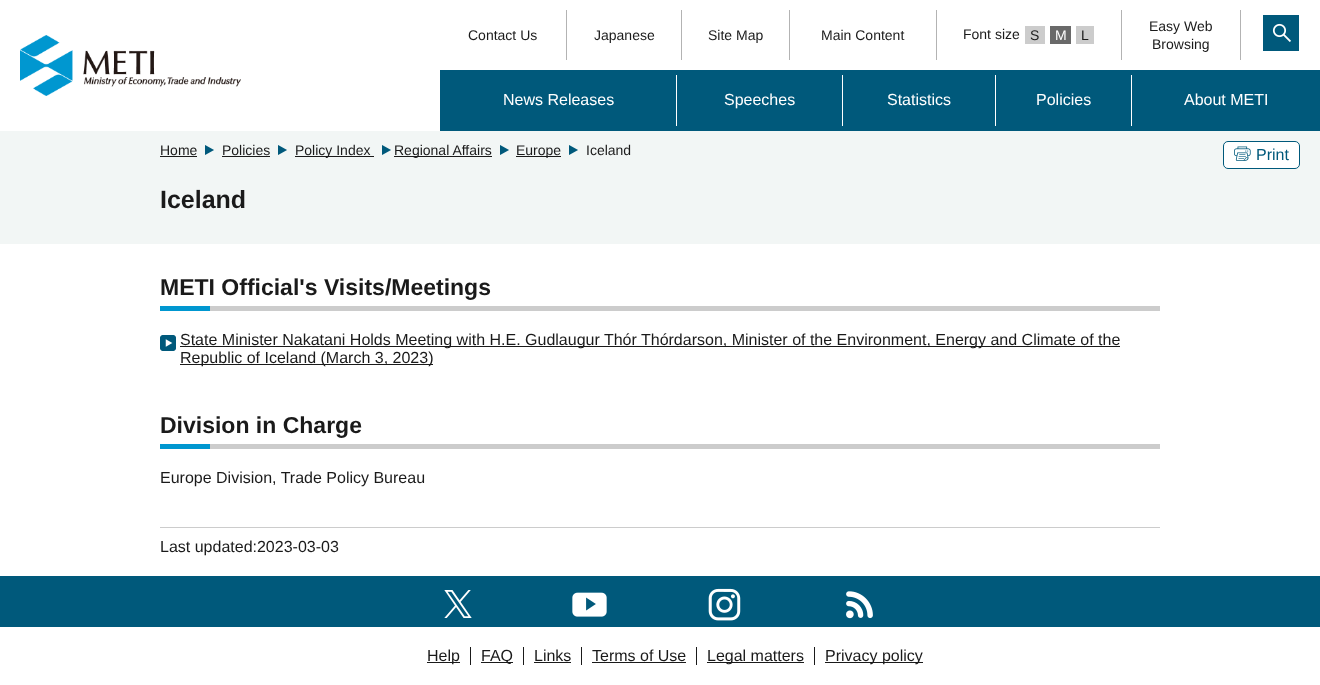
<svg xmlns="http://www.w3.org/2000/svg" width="1320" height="685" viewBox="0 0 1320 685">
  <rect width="100%" height="100%" fill="#fff"/>
  <image x="20" y="35" width="221" height="61" href="img/1.png"/>
  <path d="M566 10h1v50H566z" fill="#b3b3b3"/>
  <path d="M681 10h1v50H681z" fill="#b3b3b3"/>
  <path d="M789 10h1v50H789z" fill="#b3b3b3"/>
  <path d="M936 10h1v50H936z" fill="#b3b3b3"/>
  <path d="M1121 10h1v50H1121z" fill="#b3b3b3"/>
  <path d="M1025 26h20v18H1025z" fill="#ccc"/>
  <path d="M1050 26h21v18H1050z" fill="#696969"/>
  <path d="M1076 26h18v18H1076z" fill="#ccc"/>
  <path d="M1240 10h1v50H1240z" fill="#b3b3b3"/>
  <image x="1263" y="15" width="36" height="36" href="img/2.png"/>
  <path d="M440 70h880v61H440z" fill="#00597b"/>
  <path d="M676 75h1v51H676z" fill="#fff"/>
  <path d="M842 75h1v51H842z" fill="#fff"/>
  <path d="M995 75h1v51H995z" fill="#fff"/>
  <path d="M1131 75h1v51H1131z" fill="#fff"/>
  <path d="M0 131h1320v113H0z" fill="#f2f6f5"/>
  <path d="M160 156h37v1H160z" fill="#1a1a1a"/>
  <image x="205" y="145" width="9" height="10" href="img/3.png"/>
  <path d="M222 156h48v1H222z" fill="#1a1a1a"/>
  <image x="278" y="145" width="9" height="10" href="img/3.png"/>
  <path d="M295 156h79v1H295z" fill="#1a1a1a"/>
  <image x="382" y="145" width="9" height="10" href="img/3.png"/>
  <path d="M394 156h98v1H394z" fill="#1a1a1a"/>
  <image x="500" y="145" width="9" height="10" href="img/3.png"/>
  <path d="M516 156h45v1H516z" fill="#1a1a1a"/>
  <image x="569" y="145" width="9" height="10" href="img/3.png"/>
  <rect x="1223.5" y="141.5" width="76" height="27" rx="4.5" fill="#fff" stroke="#00597b"/>
  <image x="1234" y="146" width="17" height="15" href="img/4.png"/>
  <path d="M210 306h950v5H210z" fill="#ccc"/>
  <path d="M160 306h50v5H160z" fill="#0097d0"/>
  <image x="160" y="335" width="16" height="16" href="img/5.png"/>
  <path d="M180 346h940v1H180z" fill="#1a1a1a"/>
  <path d="M180 364h253v1H180z" fill="#1a1a1a"/>
  <path d="M210 444h950v5H210z" fill="#ccc"/>
  <path d="M160 444h50v5H160z" fill="#0097d0"/>
  <path d="M160 527h1000v1H160z" fill="#ccc"/>
  <path d="M0 576h1320v51H0z" fill="#00597b"/>
  <image x="444" y="590" width="28" height="28" href="img/6.png"/>
  <image x="572" y="592" width="35" height="25" href="img/7.png"/>
  <image x="708" y="588" width="33" height="33" href="img/8.png"/>
  <image x="846" y="591" width="27" height="28" href="img/9.png"/>
  <path d="M427 662h33v1H427z" fill="#1a1a1a"/>
  <path d="M470 647h1v18H470z" fill="#1a1a1a"/>
  <path d="M481 662h32v1H481z" fill="#1a1a1a"/>
  <path d="M523 647h1v18H523z" fill="#1a1a1a"/>
  <path d="M534 662h37v1H534z" fill="#1a1a1a"/>
  <path d="M581 647h1v18H581z" fill="#1a1a1a"/>
  <path d="M592 662h94v1H592z" fill="#1a1a1a"/>
  <path d="M696 647h1v18H696z" fill="#1a1a1a"/>
  <path d="M707 662h97v1H707z" fill="#1a1a1a"/>
  <path d="M814 647h1v18H814z" fill="#1a1a1a"/>
  <path d="M825 662h98v1H825z" fill="#1a1a1a"/>
  <g font-family="Liberation Sans" font-size="14" fill="#1a1a1a">
    <text x="468" y="40">Contact Us</text>
    <text x="594" y="40">Japanese</text>
    <text x="708" y="40">Site Map</text>
    <text x="821" y="40">Main Content</text>
    <text x="963" y="39">Font size</text>
    <text x="1030" y="40">S</text>
  </g>
  <text x="1055" y="40" font-family="Liberation Sans" font-size="14" fill="#fff">M</text>
  <g font-family="Liberation Sans" font-size="14" fill="#1a1a1a">
    <text x="1081" y="40">L</text>
    <text x="1149" y="31">Easy Web</text>
    <text x="1152" y="49">Browsing</text>
  </g>
  <g font-family="Liberation Sans" font-size="16" fill="#fff">
    <text x="503" y="105">News Releases</text>
    <text x="724" y="105">Speeches</text>
    <text x="887" y="105">Statistics</text>
    <text x="1036" y="105">Policies</text>
    <text x="1184" y="105">About METI</text>
  </g>
  <g font-family="Liberation Sans" font-size="14" fill="#1a1a1a">
    <text x="160" y="155">Home</text>
    <text x="222" y="155">Policies</text>
    <text x="295" y="155">Policy Index</text>
    <text x="394" y="155">Regional Affairs</text>
    <text x="516" y="155">Europe</text>
    <text x="586" y="155">Iceland</text>
  </g>
  <text x="1256" y="160" font-family="Liberation Sans" font-size="16" fill="#00597b">Print</text>
  <text x="160" y="208" font-family="Liberation Sans" font-size="25" font-weight="bold" fill="#1a1a1a">Iceland</text>
  <text x="160" y="295" font-family="Liberation Sans" font-size="23" font-weight="bold" fill="#1a1a1a">METI Official's Visits/Meetings</text>
  <g font-family="Liberation Sans" font-size="16" fill="#1a1a1a">
    <text x="180" y="345">State Minister Nakatani Holds Meeting with H.E. Gudlaugur Thór Thórdarson, Minister of the Environment, Energy and Climate of the</text>
    <text x="180" y="363">Republic of Iceland (March 3, 2023)</text>
  </g>
  <text x="160" y="433" font-family="Liberation Sans" font-size="23" font-weight="bold" fill="#1a1a1a">Division in Charge</text>
  <g font-family="Liberation Sans" font-size="16" fill="#1a1a1a">
    <text x="160" y="483">Europe Division, Trade Policy Bureau</text>
    <text x="160" y="552">Last updated:2023-03-03</text>
    <text x="427" y="661">Help</text>
    <text x="481" y="661">FAQ</text>
    <text x="534" y="661">Links</text>
    <text x="592" y="661">Terms of Use</text>
    <text x="707" y="661">Legal matters</text>
    <text x="825" y="661">Privacy policy</text>
  </g>
</svg>
